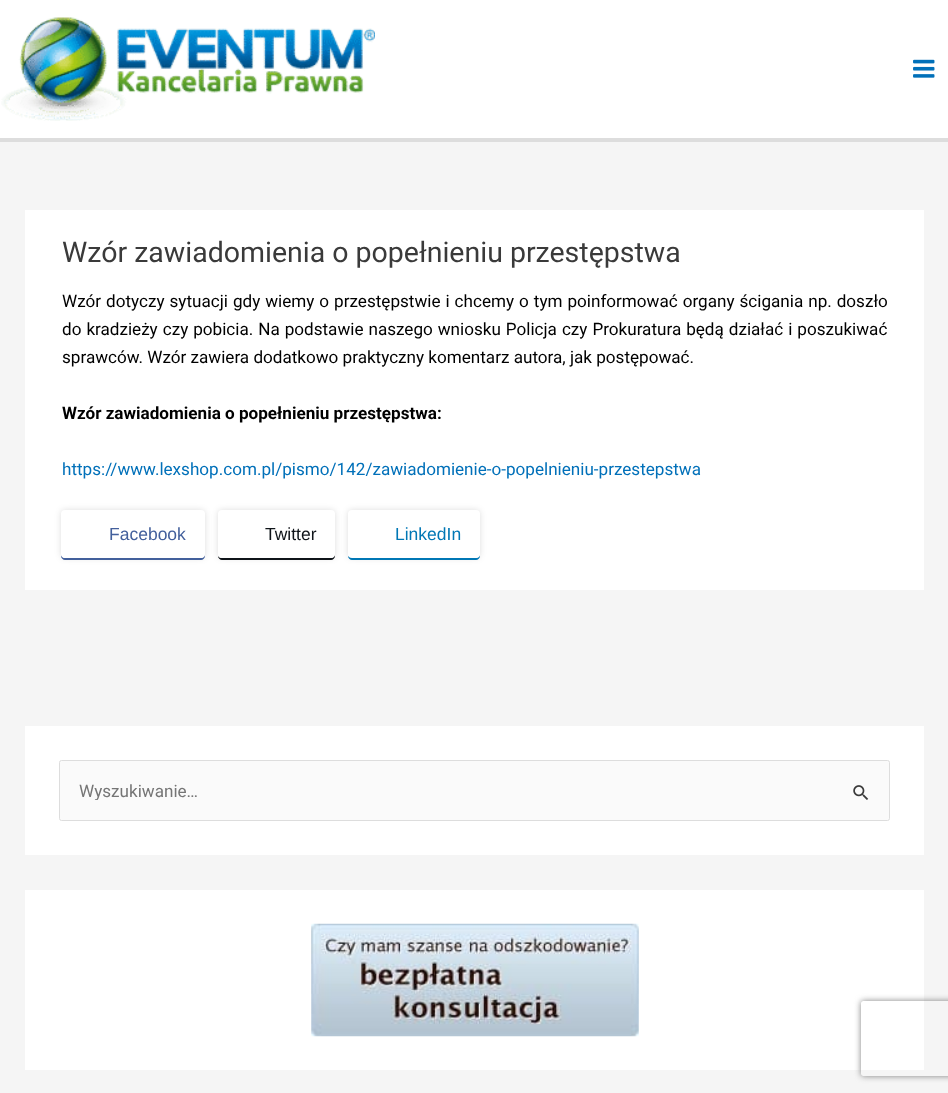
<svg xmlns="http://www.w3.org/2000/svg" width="948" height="1093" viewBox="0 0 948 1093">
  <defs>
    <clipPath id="clip1"><path d="M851 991H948V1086H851ZM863.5 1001H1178.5C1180 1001 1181 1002 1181 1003.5V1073.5C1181 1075 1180 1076 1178.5 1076H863.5C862 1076 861 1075 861 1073.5V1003.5C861 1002 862 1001 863.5 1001Z" clip-rule="evenodd"/></clipPath>
    <clipPath id="clip2"><path d="M79 780h749v20H79z"/></clipPath>
  </defs>
  <rect width="100%" height="100%" fill="#f5f5f5"/>
  <path d="M0 0h948v138H0z" fill="#fff"/>
  <path d="M0 138h948v4H0z" fill="#ddd"/>
  <image x="1" y="17" width="374" height="104" href="img/1.png"/>
  <image x="913" y="59" width="22" height="19" href="img/2.png"/>
  <path d="M25 210h899v380H25z" fill="#fff"/>
  <rect x="61" y="510" width="144" height="48" rx="4" fill="#00000021" filter="blur(3px)"/>
  <path d="M61 516V556C61 558 63 560 65 560H201C203 560 205 558 205 556V554C205 556 203 558 201 558H65C63 558 61 556 61 554Z" fill="#43609c"/>
  <rect x="61" y="510" width="144" height="48" rx="4" fill="#fff"/>
  <rect x="218" y="510" width="117" height="48" rx="4" fill="#00000021" filter="blur(3px)"/>
  <path d="M218 556C218 558 220 560 222 560H331C333 560 335 558 335 556V554C335 556 333 558 331 558H221C220 558 219 557 218 556Z" fill="#0f1419"/>
  <rect x="218" y="510" width="117" height="48" rx="4" fill="#fff"/>
  <rect x="348" y="510" width="132" height="48" rx="4" fill="#00000021" filter="blur(3px)"/>
  <path d="M348 556C348 558 350 560 352 560H476C478 560 480 558 480 556V554V555C479 557 478 557 476 558L350 557Z" fill="#0077b5"/>
  <rect x="348" y="510" width="132" height="48" rx="4" fill="#fff"/>
  <path d="M25 726h899v129H25z" fill="#fff"/>
  <rect x="59.5" y="760.5" width="830" height="60" rx="2" fill="#fafafa" stroke="#ddd"/>
  <image x="853" y="785" width="16" height="15" href="img/3.png"/>
  <path d="M25 890h899v180H25z" fill="#fff"/>
  <image x="311" y="923" width="328" height="114" href="img/4.png"/>
  <g clip-path="url(#clip1)">
    <rect x="861" y="1001" width="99" height="75" rx="2.5" fill="#808080" filter="blur(3px)"/>
  </g>
  <text x="62" y="262" font-family="Roboto" font-size="28.5" fill="#3a3a3a">Wzór zawiadomienia o popełnieniu przestępstwa</text>
  <g font-family="Roboto" font-size="17.1" fill="#000">
    <text x="62" y="307" word-spacing="0.75">Wzór dotyczy sytuacji gdy wiemy o przestępstwie i chcemy o tym poinformować organy ścigania np. doszło</text>
    <text x="62" y="335" word-spacing="0.75">do kradzieży czy pobicia. Na podstawie naszego wniosku Policja czy Prokuratura będą działać i poszukiwać</text>
    <text x="62" y="363">sprawców. Wzór zawiera dodatkowo praktyczny komentarz autora, jak postępować.</text>
  </g>
  <text x="62" y="419" font-family="Roboto" font-size="17.1" font-weight="bold" fill="#000">Wzór zawiadomienia o popełnieniu przestępstwa:</text>
  <text x="62" y="475" font-family="Roboto" font-size="17.1" fill="#0170b9">https://www.lexshop.com.pl/pismo/142/zawiadomienie-o-popelnieniu-przestepstwa</text>
  <text x="109" y="540" font-family="Liberation Sans" font-size="17.5" fill="#43609c">Facebook</text>
  <text x="265" y="540" font-family="Liberation Sans" font-size="17.5" fill="#0f1419">Twitter</text>
  <text x="395" y="540" font-family="Liberation Sans" font-size="17.5" fill="#0077b5">LinkedIn</text>
  <g clip-path="url(#clip2)">
    <text x="79" y="797" font-family="Roboto" font-size="17.1" fill="#757575">Wyszukiwanie…</text>
  </g>
</svg>
